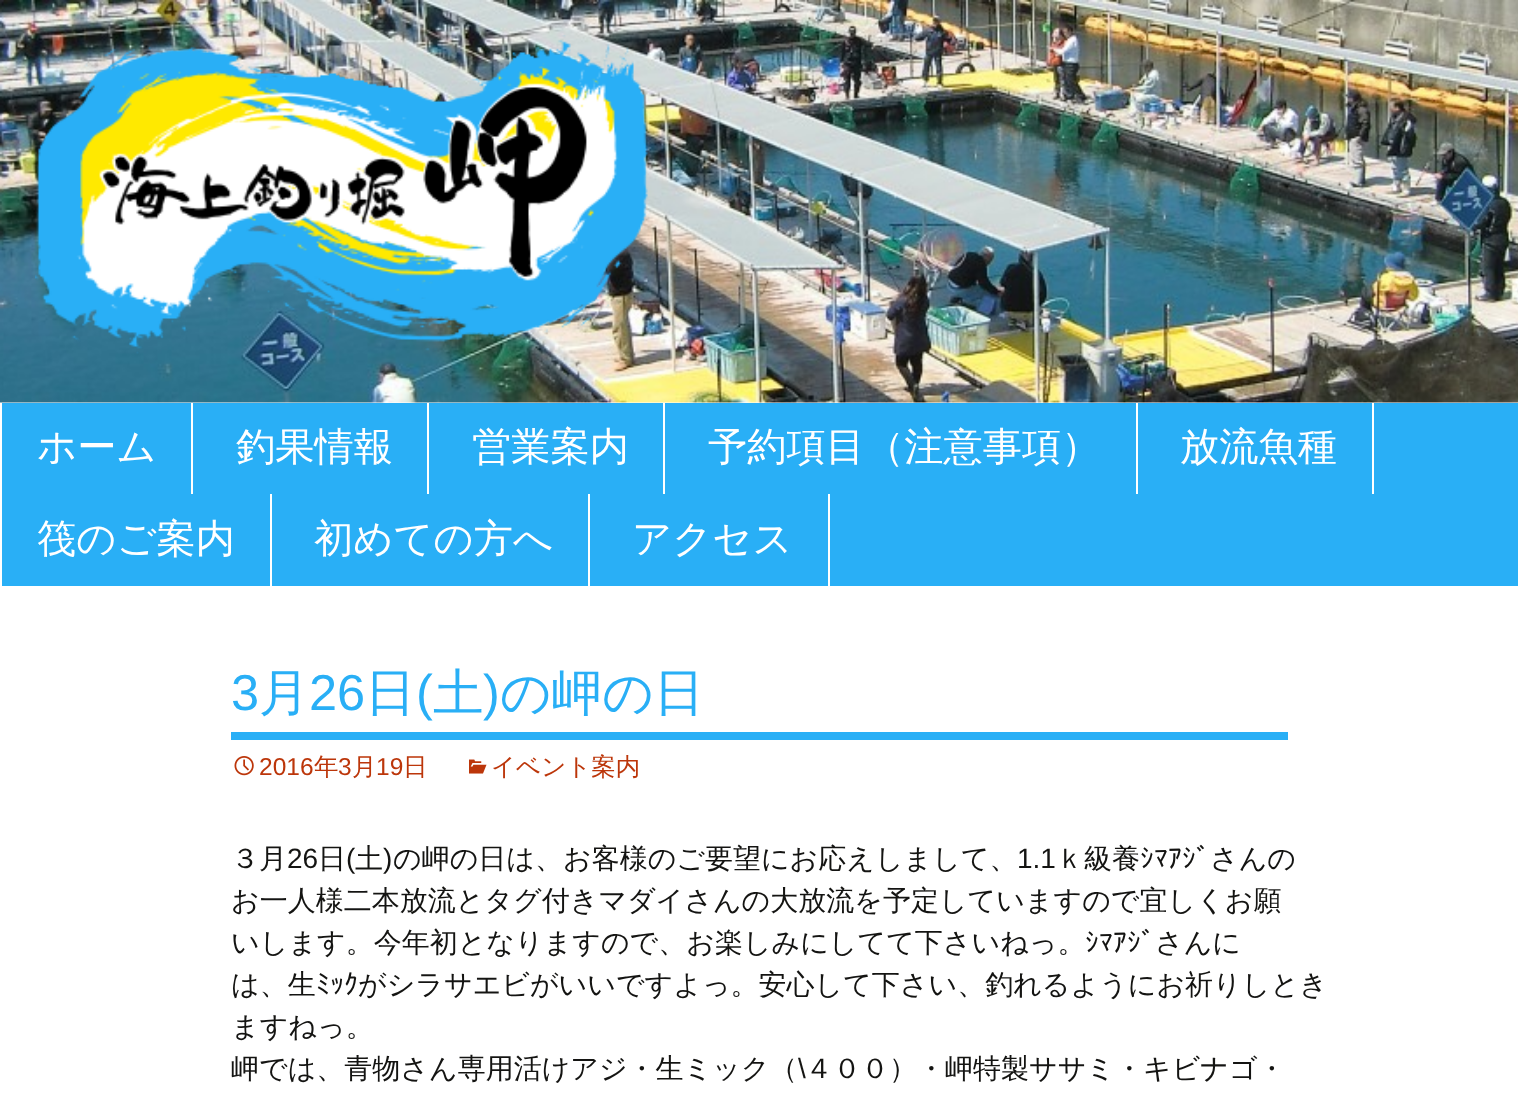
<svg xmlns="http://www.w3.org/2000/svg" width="1518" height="1114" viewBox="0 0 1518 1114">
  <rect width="100%" height="100%" fill="#fff"/>
  <image x="0" y="0" width="1518" height="403" href="img/1.png"/>
  <image x="35" y="35" width="613" height="319" href="img/2.png"/>
  <path d="M2 403h1516v183H2z" fill="#29aff6"/>
  <path d="M191 403h2v91H191z" fill="#fff"/>
  <path d="M427 403h2v91H427z" fill="#fff"/>
  <path d="M663 403h2v91H663z" fill="#fff"/>
  <path d="M1136 403h2v91H1136z" fill="#fff"/>
  <path d="M1372 403h2v91H1372z" fill="#fff"/>
  <path d="M270 494h2v92H270z" fill="#fff"/>
  <path d="M588 494h2v92H588z" fill="#fff"/>
  <path d="M828 494h2v92H828z" fill="#fff"/>
  <path d="M231 732h1057v8H231z" fill="#29aff6"/>
  <image x="234" y="756" width="20" height="20" href="img/3.png"/>
  <image x="469" y="759" width="18" height="15" href="img/4.png"/>
  <g font-family="WenQuanYi Zen Hei" font-size="39.25" font-weight="500" fill="#fff">
    <text x="37" y="460">ホーム</text>
    <text x="236" y="460">釣果情報</text>
    <text x="472" y="460">営業案内</text>
    <text x="708" y="460">予約項目（注意事項）</text>
    <text x="1180" y="460">放流魚種</text>
    <text x="37" y="552">筏のご案内</text>
    <text x="314" y="552">初めての方へ</text>
    <text x="632" y="552">アクセス</text>
  </g>
  <text x="231" y="710" font-family="Liberation Sans" font-size="50.5" fill="#29aff6">3</text>
  <text x="259" y="710" font-family="WenQuanYi Zen Hei" font-size="50.5" font-weight="500" fill="#29aff6">月</text>
  <text x="309" y="710" font-family="Liberation Sans" font-size="50.5" fill="#29aff6">26</text>
  <text x="365" y="710" font-family="WenQuanYi Zen Hei" font-size="50.5" font-weight="500" fill="#29aff6">日</text>
  <text x="416" y="710" font-family="Liberation Sans" font-size="50.5" fill="#29aff6">(</text>
  <text x="433" y="710" font-family="WenQuanYi Zen Hei" font-size="50.5" font-weight="500" fill="#29aff6">土</text>
  <text x="483" y="710" font-family="Liberation Sans" font-size="50.5" fill="#29aff6">)</text>
  <text x="500" y="710" font-family="WenQuanYi Zen Hei" font-size="50.5" font-weight="500" fill="#29aff6">の岬の日</text>
  <text x="259" y="775" font-family="Liberation Sans" font-size="24.5" fill="#bc360a">2016</text>
  <text x="314" y="775" font-family="WenQuanYi Zen Hei" font-size="24.5" font-weight="500" fill="#bc360a">年</text>
  <text x="338" y="775" font-family="Liberation Sans" font-size="24.5" fill="#bc360a">3</text>
  <text x="352" y="775" font-family="WenQuanYi Zen Hei" font-size="24.5" font-weight="500" fill="#bc360a">月</text>
  <text x="376" y="775" font-family="Liberation Sans" font-size="24.5" fill="#bc360a">19</text>
  <g font-family="WenQuanYi Zen Hei" font-size="24.5" font-weight="500" fill="#bc360a">
    <text x="403" y="775">日</text>
    <text x="491" y="775">イベント案内</text>
  </g>
  <text x="231" y="868" font-family="WenQuanYi Zen Hei" font-size="28" font-weight="500" fill="#141412">３月</text>
  <text x="287" y="868" font-family="Liberation Sans" font-size="28" fill="#141412">26</text>
  <text x="318" y="868" font-family="WenQuanYi Zen Hei" font-size="28" font-weight="500" fill="#141412">日</text>
  <text x="346" y="868" font-family="Liberation Sans" font-size="28" fill="#141412">(</text>
  <text x="355" y="868" font-family="WenQuanYi Zen Hei" font-size="28" font-weight="500" fill="#141412">土</text>
  <text x="383" y="868" font-family="Liberation Sans" font-size="28" fill="#141412">)</text>
  <text x="393" y="868" font-family="WenQuanYi Zen Hei" font-size="28" font-weight="500" fill="#141412">の岬の日は、お客様のご要望にお応えしまして、</text>
  <text x="1017" y="868" font-family="Liberation Sans" font-size="28" fill="#141412">1.1</text>
  <text x="1056" y="868" font-family="WenQuanYi Zen Hei" font-size="28" font-weight="500" fill="#141412">ｋ級養</text>
  <text x="1140" y="868" font-family="IPAPGothic" font-size="28" fill="#141412">ｼﾏｱｼﾞ</text>
  <g font-family="WenQuanYi Zen Hei" font-size="28" font-weight="500" fill="#141412">
    <text x="1210" y="868">さんの</text>
    <text x="231" y="910">お一人様二本放流とタグ付きマダイさんの大放流を予定していますので宜しくお願</text>
    <text x="231" y="952">いします。今年初となりますので、お楽しみにしてて下さいねっ。</text>
  </g>
  <text x="1085" y="952" font-family="IPAPGothic" font-size="28" fill="#141412">ｼﾏｱｼﾞ</text>
  <g font-family="WenQuanYi Zen Hei" font-size="28" font-weight="500" fill="#141412">
    <text x="1155" y="952">さんに</text>
    <text x="231" y="994">は、生</text>
  </g>
  <text x="316" y="994" font-family="IPAPGothic" font-size="28" fill="#141412">ﾐｯｸ</text>
  <g font-family="WenQuanYi Zen Hei" font-size="28" font-weight="500" fill="#141412">
    <text x="358" y="994">がシラサエビがいいですよっ。安心して下さい、釣れるようにお祈りしとき</text>
    <text x="231" y="1036">ますねっ。</text>
    <text x="231" y="1078">岬では、青物さん専用活けアジ・生ミック（</text>
  </g>
  <text x="798" y="1078" font-family="Liberation Sans" font-size="28" fill="#141412">\</text>
  <text x="805" y="1078" font-family="WenQuanYi Zen Hei" font-size="28" font-weight="500" fill="#141412">４００）・岬特製ササミ・キビナゴ・</text>
</svg>
